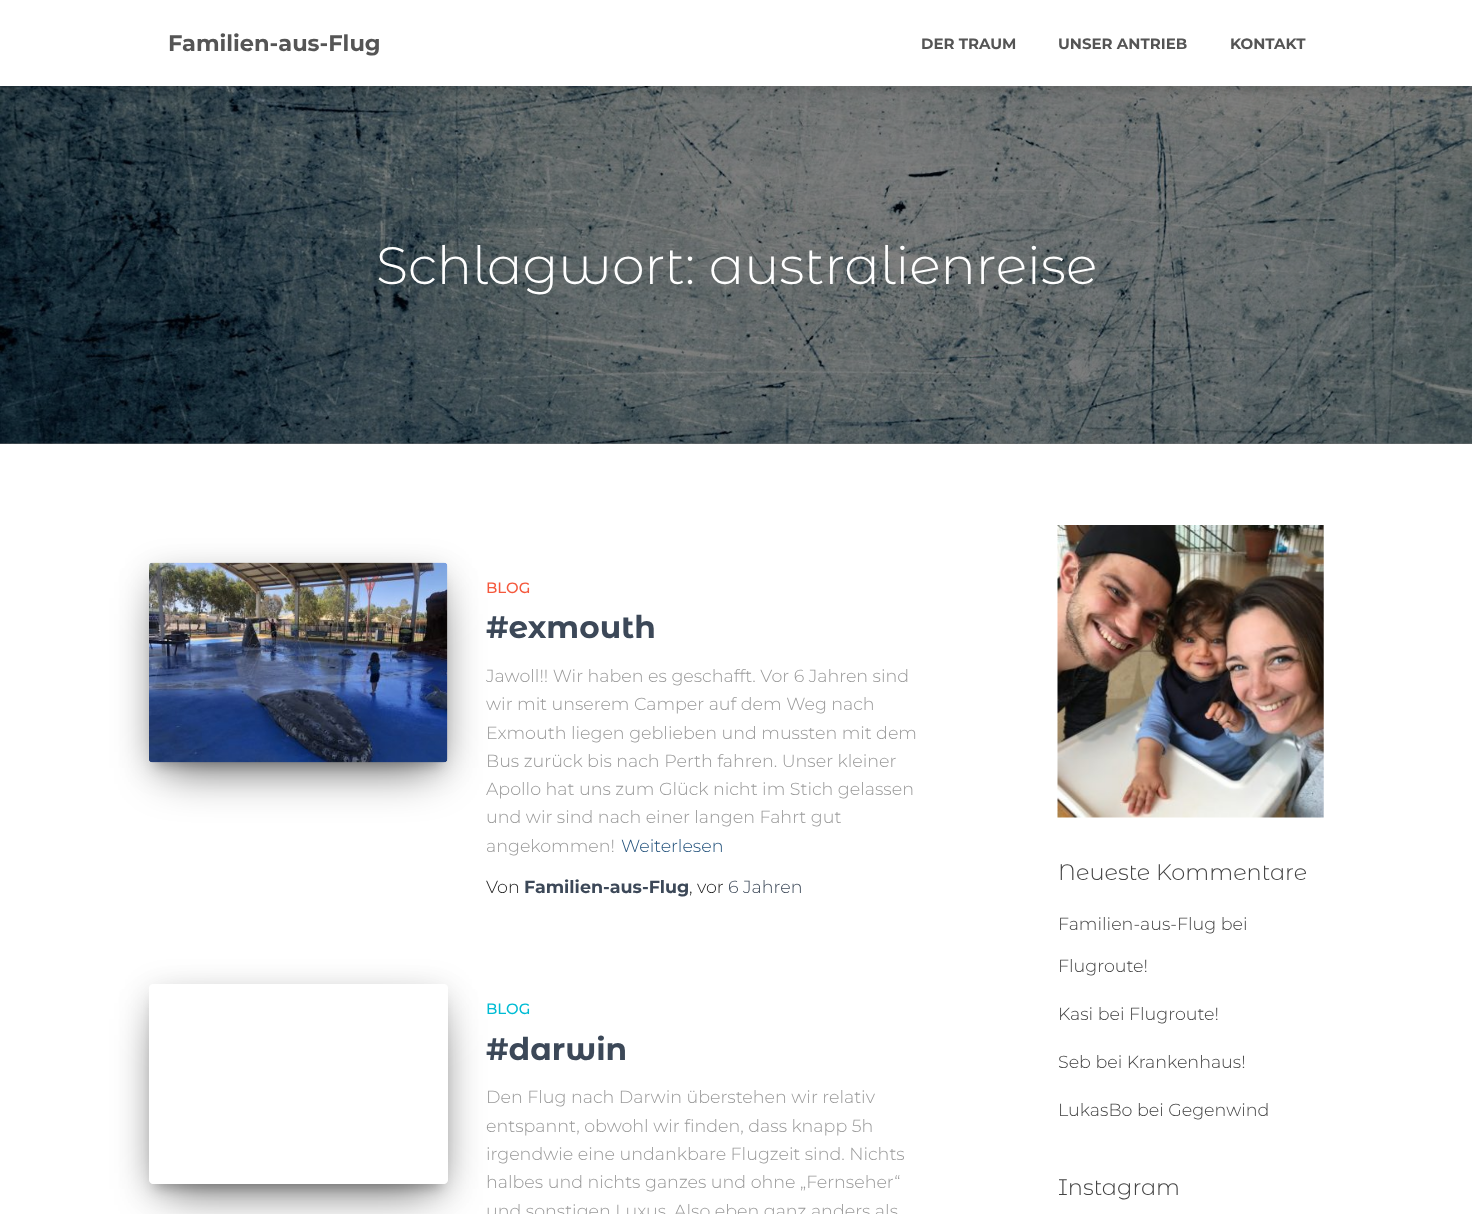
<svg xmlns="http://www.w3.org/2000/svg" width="1472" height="1214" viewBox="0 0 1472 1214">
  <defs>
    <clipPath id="clip1"><path d="M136 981H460V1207H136ZM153 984H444C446 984 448 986 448 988V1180C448 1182 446 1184 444 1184H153C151 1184 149 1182 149 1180V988C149 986 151 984 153 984Z" clip-rule="evenodd"/></clipPath>
    <clipPath id="clip2"><path d="M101 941H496V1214H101ZM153 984H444C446 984 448 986 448 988V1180C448 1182 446 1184 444 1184H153C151 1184 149 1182 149 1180V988C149 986 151 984 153 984Z" clip-rule="evenodd"/></clipPath>
    <clipPath id="clip3"><path d="M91 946H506V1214H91ZM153 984H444C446 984 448 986 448 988V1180C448 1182 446 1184 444 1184H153C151 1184 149 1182 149 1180V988C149 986 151 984 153 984Z" clip-rule="evenodd"/></clipPath>
  </defs>
  <rect width="100%" height="100%" fill="#737373"/>
  <image x="0" y="86" width="1472" height="358" href="img/1.png"/>
  <path d="M5 13h1463v76H5z" fill="#00000026" filter="blur(6px)"/>
  <path d="M0 0h1472v86H0z" fill="#fff"/>
  <path d="M0 444h1472v770H0z" fill="#fff"/>
  <path d="M155 579h286v187H155z" fill="#00000033" filter="blur(6px)"/>
  <rect x="149" y="568" width="299" height="200" rx="4" fill="#0000001f" filter="blur(15.5px)"/>
  <path d="M164 598h269v170H164z" fill="#0000008f" filter="blur(24px)"/>
  <image x="149" y="562" width="299" height="201" href="img/2.png"/>
  <g clip-path="url(#clip1)">
    <path d="M155 1000h286v188H155z" fill="#00000033" filter="blur(6px)"/>
  </g>
  <g clip-path="url(#clip2)">
    <rect x="149" y="989" width="299" height="200" rx="4" fill="#0000001f" filter="blur(15.5px)"/>
  </g>
  <g clip-path="url(#clip3)">
    <path d="M164 1019h269v170H164z" fill="#0000008f" filter="blur(24px)"/>
  </g>
  <image x="1057" y="525" width="267" height="293" href="img/3.png"/>
  <text x="168" y="51" font-family="Montserrat" font-size="22.5" font-weight="bold" fill="#555">Familien-aus-Flug</text>
  <g font-family="Montserrat" font-size="15" font-weight="bold" fill="#555">
    <text x="921" y="49">DER TRAUM</text>
    <text x="1058" y="49">UNSER ANTRIEB</text>
    <text x="1230" y="49">KONTAKT</text>
  </g>
  <text x="376" y="284" font-family="Montserrat Alternates" font-size="52.5" font-weight="300" fill="#fff">Schlagwort: australienreise</text>
  <text x="486" y="593" font-family="Montserrat Alternates" font-size="15" font-weight="500" fill="#f5593d">BLOG</text>
  <text x="486" y="638" font-family="Montserrat Alternates" font-size="31.25" font-weight="bold" fill="#3c4858">#exmouth</text>
  <g font-family="Montserrat" font-size="17.5" font-weight="300" fill="#999">
    <text x="486" y="682">Jawoll!! Wir haben es geschafft. Vor 6 Jahren sind</text>
    <text x="486" y="710">wir mit unserem Camper auf dem Weg nach</text>
    <text x="486" y="739">Exmouth liegen geblieben und mussten mit dem</text>
    <text x="486" y="767">Bus zurück bis nach Perth fahren. Unser kleiner</text>
    <text x="486" y="795">Apollo hat uns zum Glück nicht im Stich gelassen</text>
    <text x="486" y="823">und wir sind nach einer langen Fahrt gut</text>
    <text x="486" y="852">angekommen!</text>
  </g>
  <text x="621" y="852" font-family="Montserrat" font-size="17.5" font-weight="300" fill="#23527c">Weiterlesen</text>
  <text x="486" y="893" font-family="Montserrat" font-size="17.5" font-weight="300" fill="#212121">Von</text>
  <text x="524" y="893" font-family="Montserrat" font-size="17.5" font-weight="bold" fill="#3c4858">Familien-aus-Flug</text>
  <text x="689" y="893" font-family="Montserrat" font-size="17.5" font-weight="300" fill="#212121">, vor</text>
  <text x="728" y="893" font-family="Montserrat" font-size="17.5" font-weight="300" fill="#3c4858">6 Jahren</text>
  <text x="486" y="1014" font-family="Montserrat Alternates" font-size="15" font-weight="500" fill="#00bcd4">BLOG</text>
  <text x="486" y="1060" font-family="Montserrat Alternates" font-size="31.25" font-weight="bold" fill="#3c4858">#darwin</text>
  <g font-family="Montserrat" font-size="17.5" font-weight="300" fill="#999">
    <text x="486" y="1103">Den Flug nach Darwin überstehen wir relativ</text>
    <text x="486" y="1132">entspannt, obwohl wir finden, dass knapp 5h</text>
    <text x="486" y="1160">irgendwie eine undankbare Flugzeit sind. Nichts</text>
    <text x="486" y="1188">halbes und nichts ganzes und ohne „Fernseher“</text>
    <text x="486" y="1217">und sonstigen Luxus. Also eben ganz anders als</text>
  </g>
  <text x="1058" y="880" font-family="Montserrat Alternates" font-size="22.5" font-weight="300" fill="#444">Neueste Kommentare</text>
  <g font-family="Montserrat" font-size="17.5" font-weight="300" fill="#444">
    <text x="1058" y="930">Familien-aus-Flug bei</text>
    <text x="1058" y="972">Flugroute!</text>
    <text x="1058" y="1020">Kasi bei Flugroute!</text>
    <text x="1058" y="1068">Seb bei Krankenhaus!</text>
    <text x="1058" y="1116">LukasBo bei Gegenwind</text>
  </g>
  <text x="1058" y="1195" font-family="Montserrat Alternates" font-size="22.5" font-weight="300" fill="#444">Instagram</text>
</svg>
